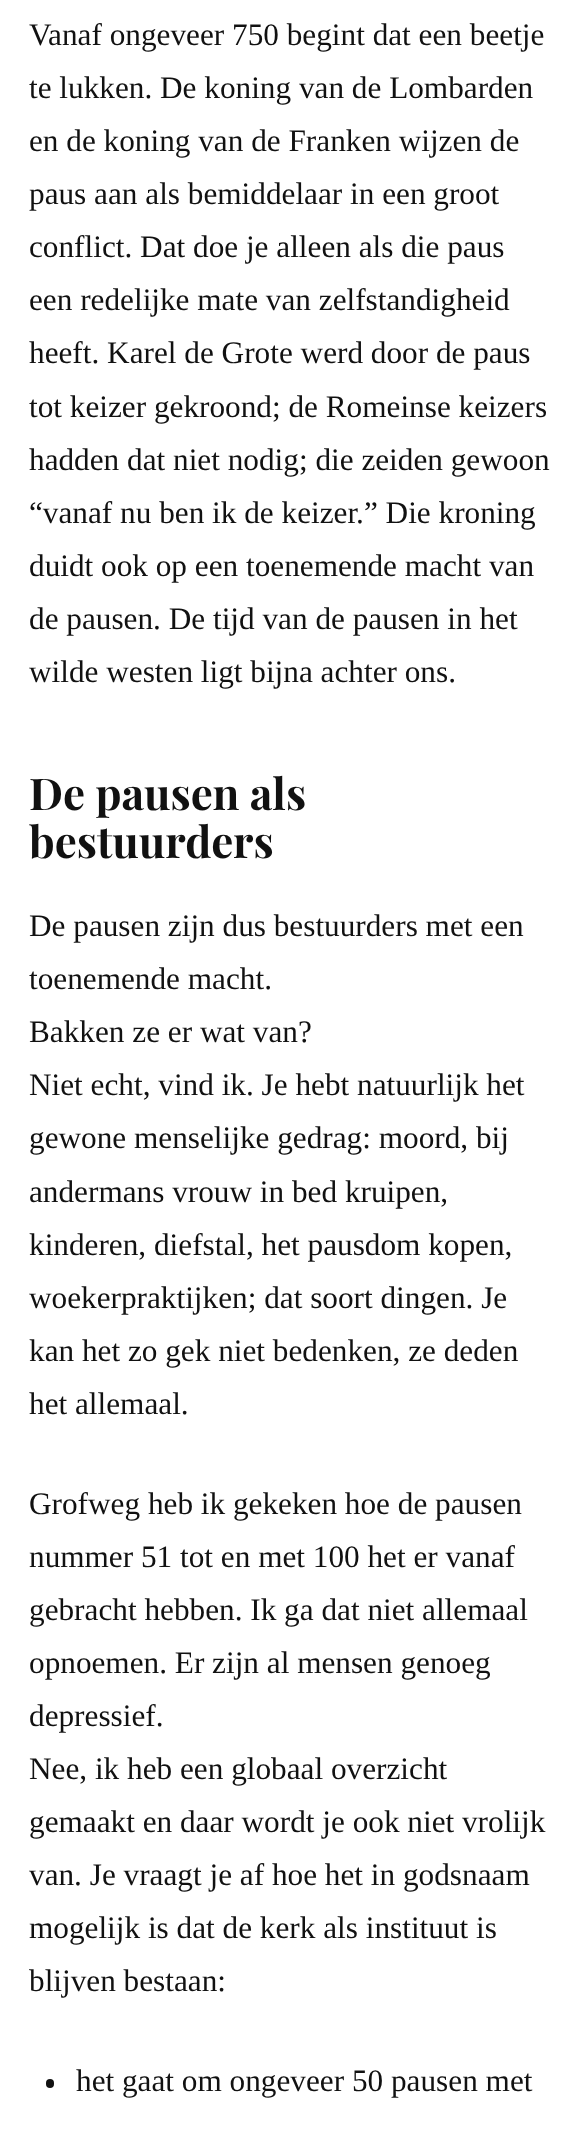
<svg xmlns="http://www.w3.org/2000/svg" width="579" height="2137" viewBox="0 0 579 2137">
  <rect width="100%" height="100%" fill="#fff"/>
  <rect x="46" y="2079" width="8" height="9" rx="4" fill="#111"/>
  <g font-family="Liberation Serif" font-size="31.25" fill="#111">
    <text x="29" y="45">Vanaf ongeveer 750 begint dat een beetje</text>
    <text x="29" y="98">te lukken. De koning van de Lombarden</text>
    <text x="29" y="151">en de koning van de Franken wijzen de</text>
    <text x="29" y="204">paus aan als bemiddelaar in een groot</text>
    <text x="29" y="257">conflict. Dat doe je alleen als die paus</text>
    <text x="29" y="310">een redelijke mate van zelfstandigheid</text>
    <text x="29" y="363">heeft. Karel de Grote werd door de paus</text>
    <text x="29" y="417">tot keizer gekroond; de Romeinse keizers</text>
    <text x="29" y="470">hadden dat niet nodig; die zeiden gewoon</text>
    <text x="29" y="523">“vanaf nu ben ik de keizer.” Die kroning</text>
    <text x="29" y="576">duidt ook op een toenemende macht van</text>
    <text x="29" y="629">de pausen. De tijd van de pausen in het</text>
    <text x="29" y="682">wilde westen ligt bijna achter ons.</text>
  </g>
  <g font-family="Playfair Display" font-size="43.75" font-weight="bold" fill="#111">
    <text x="29" y="810">De pausen als</text>
    <text x="29" y="858">bestuurders</text>
  </g>
  <g font-family="Liberation Serif" font-size="31.25" fill="#111">
    <text x="29" y="936">De pausen zijn dus bestuurders met een</text>
    <text x="29" y="989">toenemende macht.</text>
    <text x="29" y="1042">Bakken ze er wat van?</text>
    <text x="29" y="1095">Niet echt, vind ik. Je hebt natuurlijk het</text>
    <text x="29" y="1148">gewone menselijke gedrag: moord, bij</text>
    <text x="29" y="1202">andermans vrouw in bed kruipen,</text>
    <text x="29" y="1255">kinderen, diefstal, het pausdom kopen,</text>
    <text x="29" y="1308">woekerpraktijken; dat soort dingen. Je</text>
    <text x="29" y="1361">kan het zo gek niet bedenken, ze deden</text>
    <text x="29" y="1414">het allemaal.</text>
    <text x="29" y="1514">Grofweg heb ik gekeken hoe de pausen</text>
    <text x="29" y="1567">nummer 51 tot en met 100 het er vanaf</text>
    <text x="29" y="1620">gebracht hebben. Ik ga dat niet allemaal</text>
    <text x="29" y="1673">opnoemen. Er zijn al mensen genoeg</text>
    <text x="29" y="1726">depressief.</text>
    <text x="29" y="1779">Nee, ik heb een globaal overzicht</text>
    <text x="29" y="1832">gemaakt en daar wordt je ook niet vrolijk</text>
    <text x="29" y="1885">van. Je vraagt je af hoe het in godsnaam</text>
    <text x="29" y="1938">mogelijk is dat de kerk als instituut is</text>
    <text x="29" y="1991">blijven bestaan:</text>
    <text x="76" y="2091">het gaat om ongeveer 50 pausen met</text>
  </g>
</svg>
